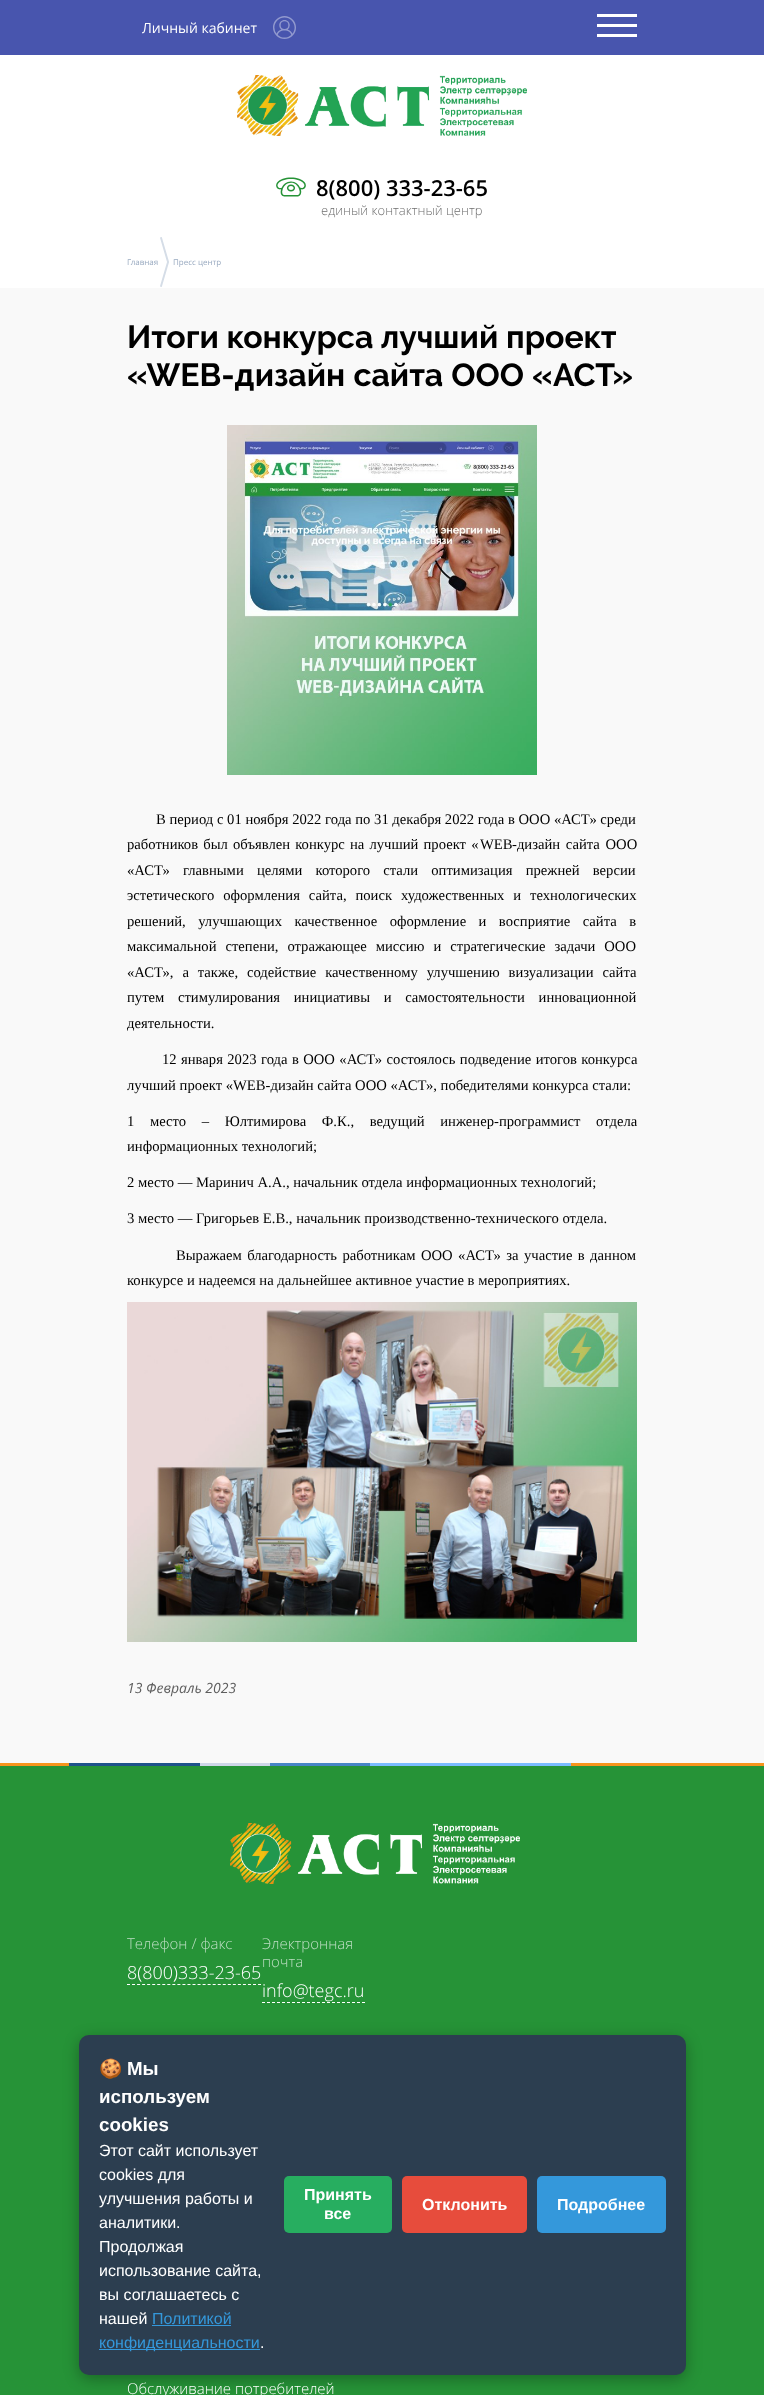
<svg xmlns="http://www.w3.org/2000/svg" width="764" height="2395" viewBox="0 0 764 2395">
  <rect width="100%" height="100%" fill="#fff"/>
  <path d="M0 0h764v55H0z" fill="#4855ae"/>
  <image x="273" y="16" width="23" height="23" href="img/1.png"/>
  <path d="M597 24h40v3H597z" fill="#fff"/>
  <path d="M597 14h40v3H597z" fill="#fff"/>
  <path d="M597 34h40v3H597z" fill="#fff"/>
  <image x="237" y="75" width="290" height="61" href="img/2.png"/>
  <image x="276" y="177" width="30" height="20" href="img/3.png"/>
  <image x="160" y="237" width="9" height="50" href="img/4.png"/>
  <path d="M0 288h764v1475H0z" fill="#f9f9f9"/>
  <image x="227" y="425" width="310" height="350" href="img/5.png"/>
  <image x="127" y="1302" width="510" height="340" href="img/6.png"/>
  <path d="M0 1766h764v629H0z" fill="#269337"/>
  <image x="0" y="1763" width="764" height="3" href="img/7.png"/>
  <image x="230" y="1823" width="290" height="61" href="img/8.png"/>
  <path d="M127 1984.5H261" fill="none" stroke="#fefeff" stroke-dasharray="3 2.04"/>
  <path d="M262 2002.5H365" fill="none" stroke="#fefeff" stroke-dasharray="3 2"/>
  <rect x="79" y="2039" width="607" height="340" rx="10" fill="#0000004d" filter="blur(7.5px)"/>
  <rect x="79" y="2035" width="607" height="340" rx="10" fill="#2c3e50"/>
  <path d="M152 2325h79v1H152z" fill="#3498db"/>
  <path d="M99 2349h161v1H99z" fill="#3498db"/>
  <rect x="284" y="2176" width="108" height="57" rx="5" fill="#27ae60"/>
  <rect x="402" y="2176" width="125" height="57" rx="5" fill="#e74c3c"/>
  <rect x="537" y="2176" width="129" height="57" rx="5" fill="#3498db"/>
  <text x="142" y="33" font-family="Open Sans" font-size="14" fill="#fff">Личный кабинет</text>
  <text x="316" y="196" font-family="Open Sans" font-size="22" font-weight="600" fill="#000">8(800) 333-23-65</text>
  <text x="321" y="215" font-family="Open Sans" font-size="13" font-weight="300" fill="#6f6f6f">единый контактный центр</text>
  <g font-family="Open Sans" font-size="8" fill="#99aac0">
    <text x="127" y="265">Главная</text>
    <text x="173" y="265">Пресс центр</text>
  </g>
  <g font-family="Raleway" font-size="32" font-weight="bold" fill="#000">
    <text x="127" y="348">Итоги конкурса лучший проект</text>
    <text x="127" y="386" word-spacing="0.5">«WEB-дизайн сайта ООО «АСТ»</text>
  </g>
  <g font-family="Liberation Serif" font-size="14.65" fill="#000">
    <text x="156" y="824">В период с 01 ноября 2022 года по 31 декабря 2022 года в ООО «АСТ» среди</text>
    <text x="127" y="849" word-spacing="1.5">работников был объявлен конкурс на лучший проект «</text>
    <text x="480" y="849">WEB</text>
    <text x="512" y="849" word-spacing="2">-дизайн сайта ООО</text>
    <text x="127" y="875" word-spacing="9.5">«АСТ» главными целями которого стали оптимизация прежней версии</text>
    <text x="127" y="900" word-spacing="5.25">эстетического оформления сайта, поиск художественных и технологических</text>
    <text x="127" y="926" word-spacing="8.75">решений, улучшающих качественное оформление и восприятие сайта в</text>
    <text x="127" y="951" word-spacing="5.25">максимальной степени, отражающее миссию и стратегические задачи ООО</text>
    <text x="127" y="977" word-spacing="5.25">«АСТ», а также, содействие качественному улучшению визуализации сайта</text>
    <text x="127" y="1002" word-spacing="10">путем стимулирования инициативы и самостоятельности инновационной</text>
    <text x="127" y="1028">деятельности.</text>
    <text x="162" y="1064" word-spacing="0.75">12 января 2023 года в ООО «АСТ» состоялось подведение итогов конкурса</text>
    <text x="127" y="1090">лучший проект «WEB-дизайн сайта ООО «АСТ», победителями конкурса стали:</text>
    <text x="127" y="1126" word-spacing="12">1 место – Юлтимирова Ф.К., ведущий инженер-программист отдела</text>
    <text x="127" y="1151">информационных технологий;</text>
    <text x="127" y="1187">2 место — Маринич А.А., начальник отдела информационных технологий;</text>
    <text x="127" y="1223">3 место — Григорьев Е.В., начальник производственно-технического отдела.</text>
    <text x="176" y="1260" word-spacing="1.75">Выражаем благодарность работникам ООО «АСТ» за участие в данном</text>
    <text x="127" y="1285">конкурсе и надеемся на дальнейшее активное участие в мероприятиях.</text>
  </g>
  <text x="127" y="1693" font-family="Open Sans" font-size="14" font-style="italic" fill="#5e5e5e">13 Февраль 2023</text>
  <text x="127" y="1949" font-family="Open Sans" font-size="15" font-weight="300" fill="#bddec3">Телефон / факс</text>
  <text x="127" y="1979" font-family="Open Sans" font-size="18" font-weight="300" fill="#fff">8(800)333-23-65</text>
  <g font-family="Open Sans" font-size="15" font-weight="300" fill="#bddec3">
    <text x="262" y="1949">Электронная</text>
    <text x="262" y="1967">почта</text>
  </g>
  <text x="262" y="1997" font-family="Open Sans" font-size="18" font-weight="300" fill="#fff">info@tegc.ru</text>
  <text x="127" y="2394" font-family="Open Sans" font-size="15" font-weight="300" fill="#fff">Обслуживание потребителей</text>
  <text x="99" y="2075" font-family="Noto Color Emoji" font-size="18.75" font-weight="bold" fill="#fff">🍪</text>
  <g font-family="Liberation Sans" font-size="18.75" font-weight="bold" fill="#fff">
    <text x="127" y="2075">Мы</text>
    <text x="99" y="2103">используем</text>
    <text x="99" y="2131">cookies</text>
  </g>
  <g font-family="Liberation Sans" font-size="16" fill="#fff">
    <text x="99" y="2156">Этот сайт использует</text>
    <text x="99" y="2180">cookies для</text>
    <text x="99" y="2204">улучшения работы и</text>
    <text x="99" y="2228">аналитики.</text>
    <text x="99" y="2252">Продолжая</text>
    <text x="99" y="2276">использование сайта,</text>
    <text x="99" y="2300">вы соглашаетесь с</text>
    <text x="99" y="2324">нашей</text>
  </g>
  <g font-family="Liberation Sans" font-size="16" fill="#3498db">
    <text x="152" y="2324">Политикой</text>
    <text x="99" y="2348">конфиденциальности</text>
  </g>
  <text x="260" y="2348" font-family="Liberation Sans" font-size="16" fill="#fff">.</text>
  <g font-family="Liberation Sans" font-size="16" font-weight="bold" fill="#fff">
    <text x="304" y="2200">Принять</text>
    <text x="324" y="2219">все</text>
    <text x="422" y="2210">Отклонить</text>
    <text x="557" y="2210">Подробнее</text>
  </g>
</svg>
